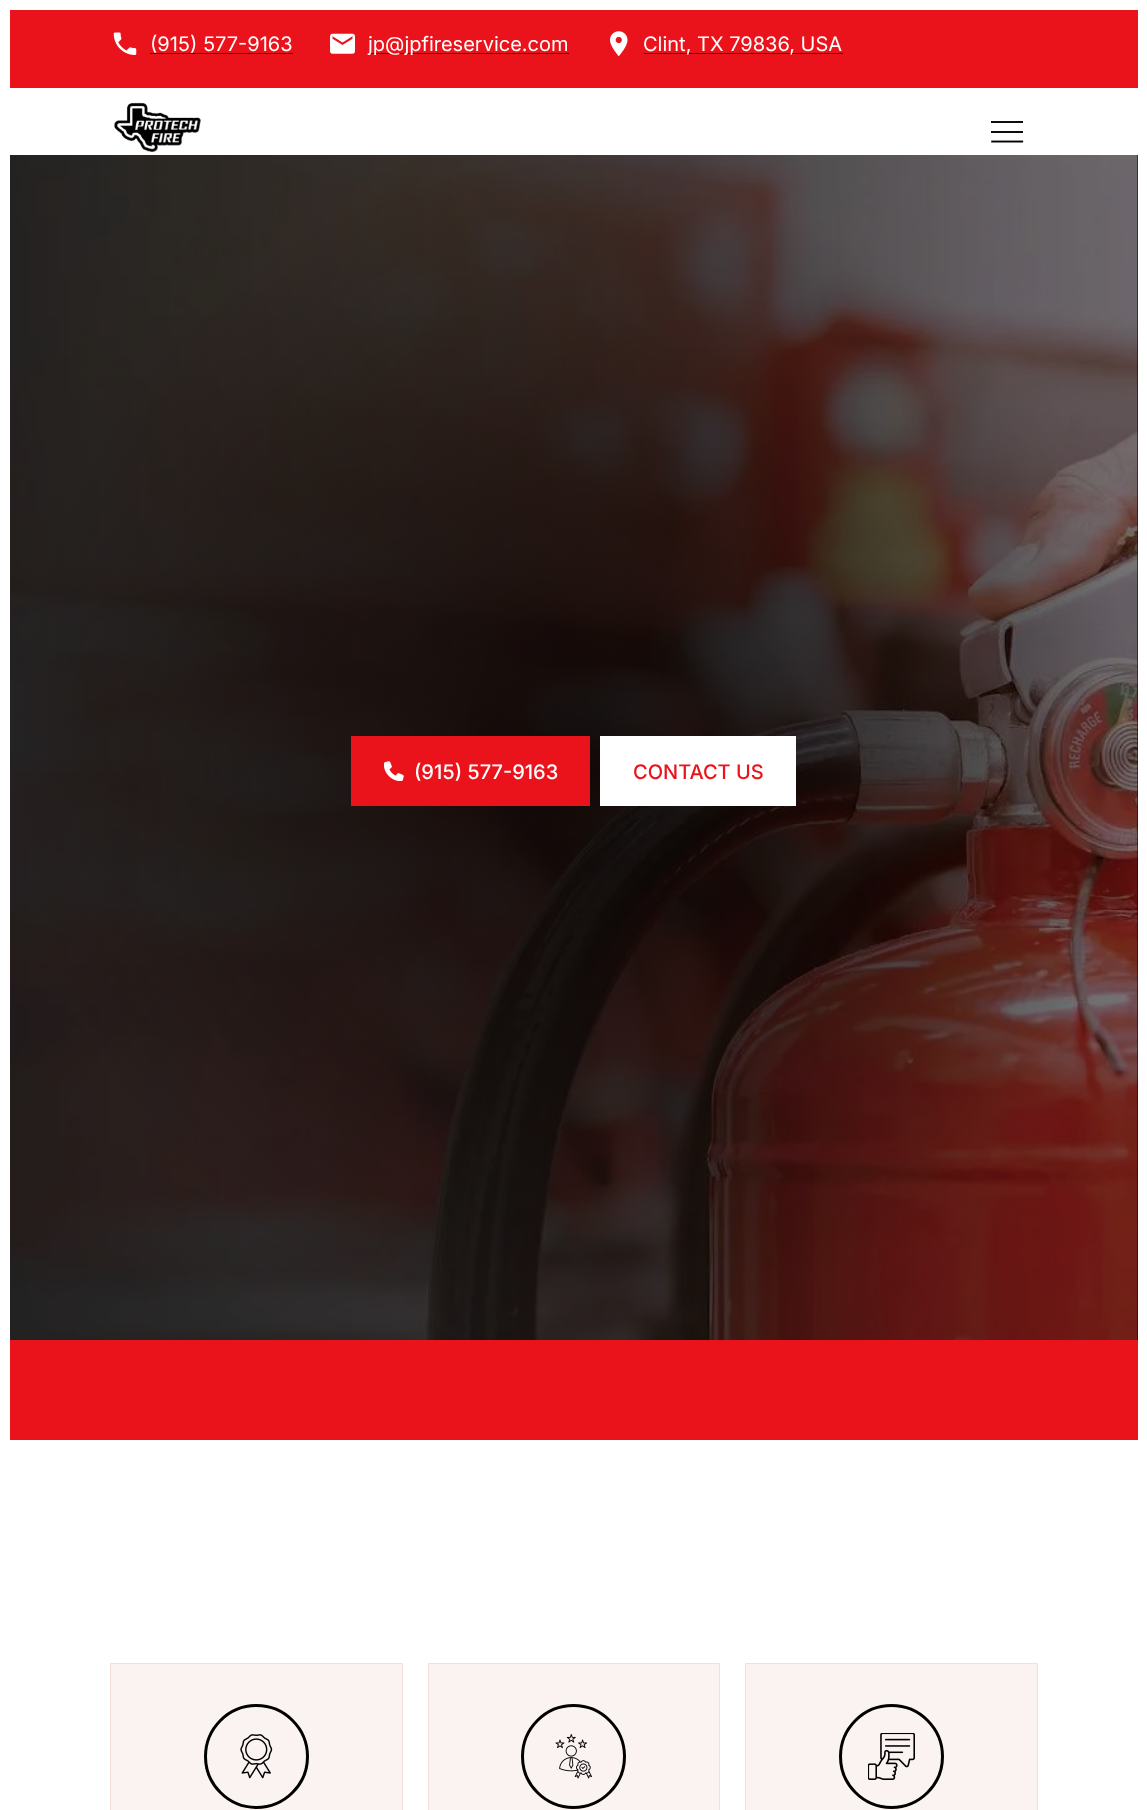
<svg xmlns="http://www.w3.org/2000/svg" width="1147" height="1810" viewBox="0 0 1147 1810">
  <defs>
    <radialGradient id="g1" gradientUnits="userSpaceOnUse" cx="0" cy="0" r="1" gradientTransform="matrix(564 0 0 593 574 748)"><stop offset="0" stop-color="#000" stop-opacity="0.7"/><stop offset="1" stop-color="#000" stop-opacity="0"/></radialGradient>
  </defs>
  <rect width="100%" height="100%" fill="#fff"/>
  <path d="M10 10h1128v78H10z" fill="#eb131b"/>
  <image x="113" y="32" width="24" height="23" href="img/1.png"/>
  <path d="M150 53h143v1H150z" fill="#00e"/>
  <image x="330" y="33" width="25" height="21" href="img/2.png"/>
  <path d="M368 53h201v1H368z" fill="#00e"/>
  <image x="610" y="31" width="18" height="26" href="img/3.png"/>
  <path d="M644 53h199v1H644z" fill="#00e"/>
  <image x="114" y="102" width="87" height="51" href="img/4.png"/>
  <image x="991" y="121" width="33" height="22" href="img/5.png"/>
  <path d="M10 155h1128v1185H10z" fill="#000"/>
  <image x="10" y="155" width="1128" height="1185" href="img/6.png"/>
  <ellipse cx="574" cy="747.5" rx="564" ry="592.5" fill="url(#g1)"/>
  <path d="M351 736h239v70H351z" fill="#eb131b"/>
  <image x="384" y="761" width="20" height="20" href="img/7.png"/>
  <path d="M600 736h196v70H600z" fill="#fff"/>
  <path d="M10 1340h1128v100H10z" fill="#eb131b"/>
  <path d="M110.5 1663.5h292v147H110.5z" fill="#fbf3f2" stroke="#f4deda"/>
  <circle cx="256.5" cy="1756.5" r="51" fill="none" stroke="#000" stroke-width="3"/>
  <image x="240" y="1734" width="33" height="45" href="img/8.png"/>
  <path d="M428.5 1663.5h291v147H428.5z" fill="#fbf3f2" stroke="#f4deda"/>
  <circle cx="573.5" cy="1756.5" r="51" fill="none" stroke="#000" stroke-width="3"/>
  <image x="555" y="1734" width="37" height="45" href="img/9.png"/>
  <path d="M745.5 1663.5h292v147H745.5z" fill="#fbf3f2" stroke="#f4deda"/>
  <circle cx="891.5" cy="1756.5" r="51" fill="none" stroke="#000" stroke-width="3"/>
  <image x="868" y="1733" width="47" height="47" href="img/10.png"/>
  <g font-family="Inter" font-size="20" fill="#fff">
    <text x="150" y="51">(915) 577-9163</text>
    <text x="368" y="51">jp@jpfireservice.com</text>
    <text x="643" y="51">Clint, TX 79836, USA</text>
  </g>
  <text x="414" y="779" font-family="Inter" font-size="20" font-weight="500" fill="#fff">(915) 577-9163</text>
  <text x="633" y="779" font-family="Inter" font-size="20" font-weight="500" fill="#eb131b">CONTACT US</text>
</svg>
